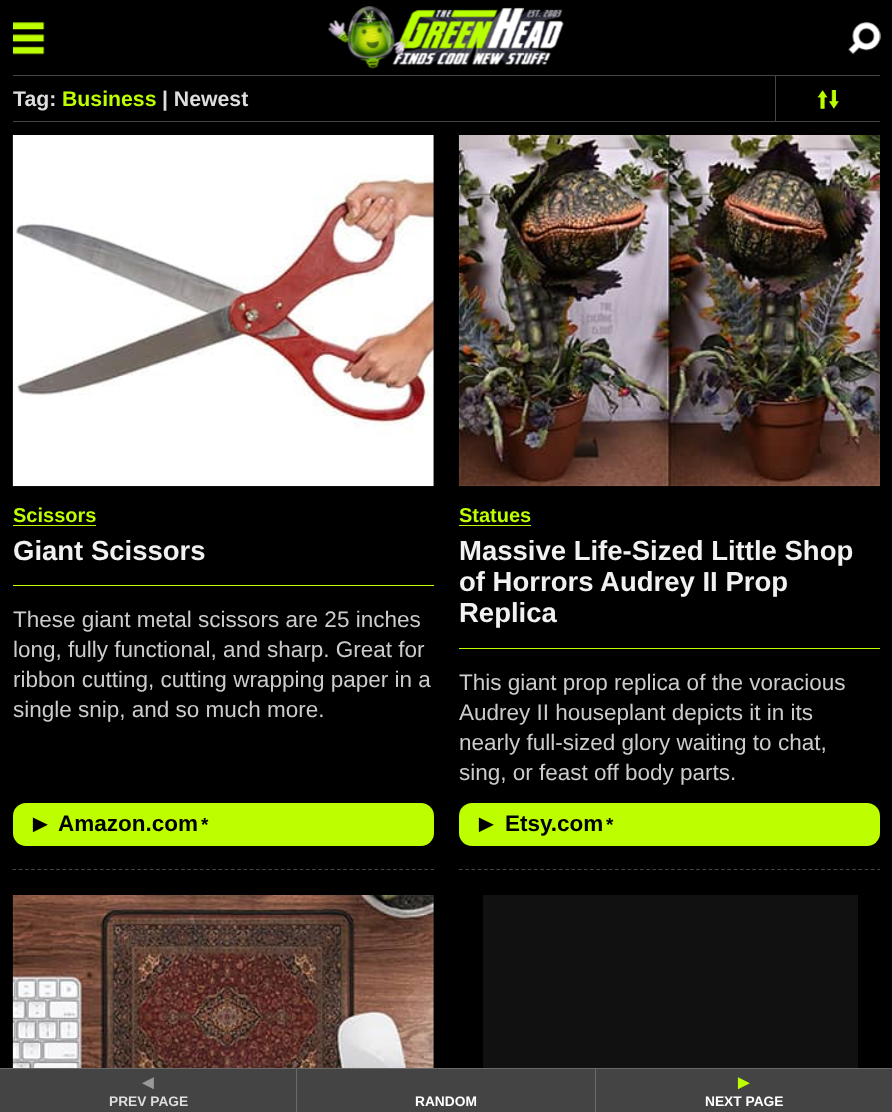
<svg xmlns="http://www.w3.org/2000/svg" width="892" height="1112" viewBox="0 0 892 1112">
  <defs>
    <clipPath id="clip1"><path d="M13 76h762v45H13z"/></clipPath>
  </defs>
  <rect width="100%" height="100%" fill="#000"/>
  <image x="13" y="22" width="32" height="33" href="img/1.png"/>
  <image x="328" y="6" width="236" height="63" href="img/2.png"/>
  <image x="848" y="22" width="33" height="33" href="img/3.png"/>
  <path d="M13 75h867v1H13z" fill="#444"/>
  <path d="M13 121h867v1H13z" fill="#444"/>
  <path d="M775 76h1v45H775z" fill="#444"/>
  <image x="817" y="90" width="22" height="19" href="img/4.png"/>
  <path d="M12.5 869.5H434" fill="none" stroke="#444" stroke-width="1.2" stroke-dasharray="3.75 2.49"/>
  <image x="12" y="135" width="422" height="352" href="img/5.png"/>
  <path d="M13 525h83v1H13z" fill="#bdff00"/>
  <path d="M13 585h421v1H13z" fill="#bdff00"/>
  <rect x="13" y="803" width="421" height="43" rx="13" fill="#bdff00"/>
  <path d="M459 869.5H880" fill="none" stroke="#444" stroke-width="1.2" stroke-dasharray="3.75 2.49"/>
  <image x="458" y="135" width="422" height="352" href="img/6.png"/>
  <path d="M459 525h72v1H459z" fill="#bdff00"/>
  <path d="M459 648h421v1H459z" fill="#bdff00"/>
  <rect x="459" y="803" width="421" height="43" rx="13" fill="#bdff00"/>
  <image x="12" y="895" width="422" height="173" href="img/7.png"/>
  <path d="M483 895h375v173H483z" fill="#111"/>
  <path d="M0 1069h892v43H0z" fill="#444"/>
  <path d="M0 1068h892v1H0z" fill="#696969"/>
  <path d="M296 1069h1v43H296z" fill="#696969"/>
  <path d="M595 1069h1v43H595z" fill="#696969"/>
  <g clip-path="url(#clip1)">
    <text x="13" y="106" font-family="Liberation Sans" font-size="21.25" font-weight="bold" fill="#ddd">Tag:</text>
  </g>
  <text x="62" y="106" font-family="Liberation Sans" font-size="21.25" font-weight="bold" fill="#bdff00">Business</text>
  <text x="162" y="106" font-family="Liberation Sans" font-size="21.25" font-weight="bold" fill="#ddd">| Newest</text>
  <text x="13" y="522" font-family="Liberation Sans" font-size="20" font-weight="bold" fill="#bdff00">Scissors</text>
  <text x="13" y="560" font-family="Liberation Sans" font-size="27.5" font-weight="bold" fill="#f1f1f1">Giant Scissors</text>
  <g font-family="Liberation Sans" font-size="22.5" fill="#ccc">
    <text x="13" y="627">These giant metal scissors are 25 inches</text>
    <text x="13" y="657">long, fully functional, and sharp. Great for</text>
    <text x="13" y="687">ribbon cutting, cutting wrapping paper in a</text>
    <text x="13" y="717">single snip, and so much more.</text>
  </g>
  <text x="28" y="832" font-family="Liberation Sans" font-size="25" font-weight="bold" fill="#000">►</text>
  <text x="58" y="831" font-family="Liberation Sans" font-size="22.5" font-weight="bold" fill="#000">Amazon.com</text>
  <text x="201" y="831" font-family="Liberation Sans" font-size="19" font-weight="bold" fill="#000">*</text>
  <text x="459" y="522" font-family="Liberation Sans" font-size="20" font-weight="bold" fill="#bdff00">Statues</text>
  <g font-family="Liberation Sans" font-size="27.5" font-weight="bold" fill="#f1f1f1">
    <text x="459" y="560">Massive Life-Sized Little Shop</text>
    <text x="459" y="591">of Horrors Audrey II Prop</text>
    <text x="459" y="622">Replica</text>
  </g>
  <g font-family="Liberation Sans" font-size="22.5" fill="#ccc">
    <text x="459" y="690">This giant prop replica of the voracious</text>
    <text x="459" y="720">Audrey II houseplant depicts it in its</text>
    <text x="459" y="750">nearly full-sized glory waiting to chat,</text>
    <text x="459" y="780">sing, or feast off body parts.</text>
  </g>
  <text x="474" y="832" font-family="Liberation Sans" font-size="25" font-weight="bold" fill="#000">►</text>
  <text x="505" y="831" font-family="Liberation Sans" font-size="22.5" font-weight="bold" fill="#000">Etsy.com</text>
  <text x="606" y="831" font-family="Liberation Sans" font-size="19" font-weight="bold" fill="#000">*</text>
  <text x="138" y="1089" font-family="Liberation Sans" font-size="20" font-weight="bold" fill="#999">◄</text>
  <text x="109" y="1106" font-family="Liberation Sans" font-size="13.75" font-weight="bold" fill="#ddd">PREV PAGE</text>
  <text x="415" y="1106" font-family="Liberation Sans" font-size="13.75" font-weight="bold" fill="#fff">RANDOM</text>
  <text x="734" y="1089" font-family="Liberation Sans" font-size="20" font-weight="bold" fill="#bdff00">►</text>
  <text x="705" y="1106" font-family="Liberation Sans" font-size="13.75" font-weight="bold" fill="#fff">NEXT PAGE</text>
</svg>
